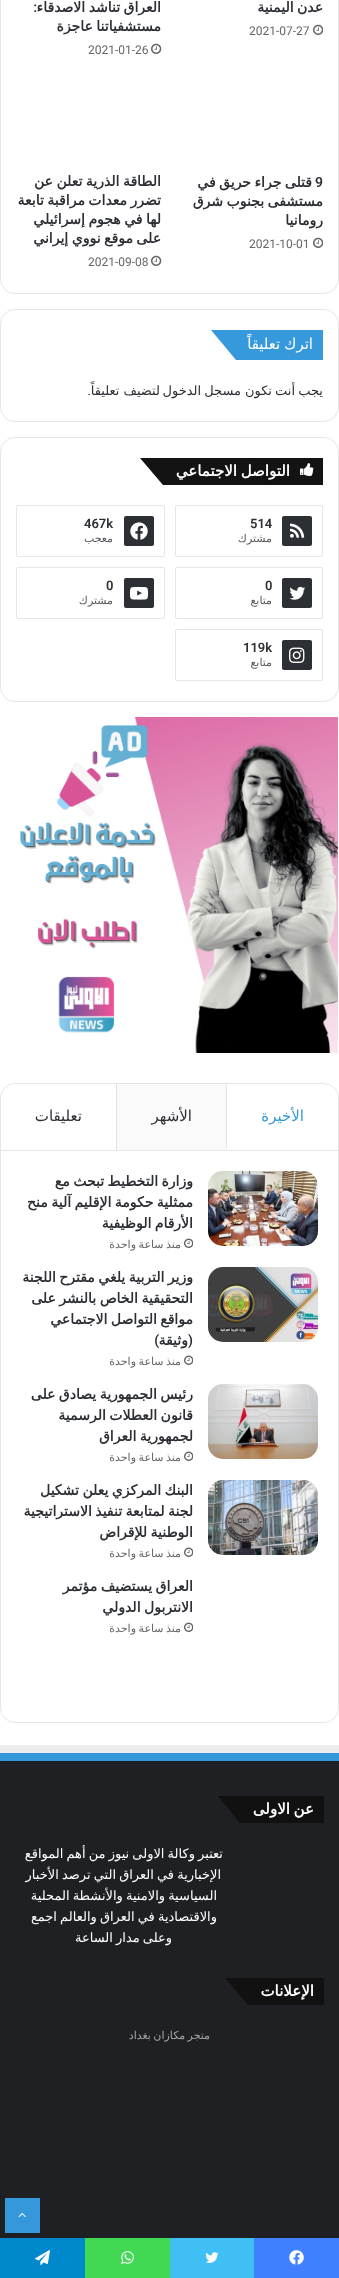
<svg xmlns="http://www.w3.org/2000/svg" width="339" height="2278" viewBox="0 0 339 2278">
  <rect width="100%" height="100%" fill="#fff"/>
  <rect x="0.5" y="-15.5" width="338" height="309" rx="14.5" fill="none" stroke="#e6e6e6"/>
  <image x="313" y="24" width="10" height="11" href="img/1.png"/>
  <image x="151" y="43" width="11" height="11" href="img/2.png"/>
  <image x="313" y="237" width="10" height="11" href="img/1.png"/>
  <image x="151" y="255" width="11" height="11" href="img/2.png"/>
  <rect x="0.5" y="309.5" width="338" height="112" rx="14.5" fill="none" stroke="#e6e6e6"/>
  <path d="M271 330h52v30H271z" fill="#3699db"/>
  <path d="M211 330H271L296 360H236Z" fill="#3699db"/>
  <rect x="0.5" y="437.5" width="338" height="264" rx="14.5" fill="none" stroke="#e6e6e6"/>
  <path d="M250 458h73v27H250z" fill="#131313"/>
  <path d="M140 458H250L273 485H163Z" fill="#131313"/>
  <image x="300" y="463" width="14" height="13" href="img/3.png"/>
  <rect x="175.5" y="505.5" width="147" height="51" rx="1.5" fill="none" stroke="#e6e6e6"/>
  <rect x="282" y="516" width="30" height="30" rx="2" fill="#2c2f34"/>
  <image x="290" y="523" width="15" height="15" href="img/4.png"/>
  <rect x="16.5" y="505.5" width="148" height="51" rx="1.5" fill="none" stroke="#e6e6e6"/>
  <rect x="124" y="516" width="30" height="30" rx="2" fill="#2c2f34"/>
  <image x="130" y="522" width="18" height="18" href="img/5.png"/>
  <rect x="175.5" y="567.5" width="147" height="51" rx="1.5" fill="none" stroke="#e6e6e6"/>
  <rect x="282" y="578" width="30" height="30" rx="2" fill="#2c2f34"/>
  <image x="289" y="586" width="17" height="14" href="img/6.png"/>
  <rect x="16.5" y="567.5" width="148" height="51" rx="1.5" fill="none" stroke="#e6e6e6"/>
  <rect x="124" y="578" width="30" height="30" rx="2" fill="#2c2f34"/>
  <image x="130" y="586" width="18" height="14" href="img/7.png"/>
  <rect x="175.5" y="629.5" width="147" height="51" rx="1.5" fill="none" stroke="#e6e6e6"/>
  <rect x="282" y="640" width="30" height="30" rx="2" fill="#2c2f34"/>
  <image x="289" y="647" width="16" height="16" href="img/8.png"/>
  <image x="20" y="717" width="318" height="336" href="img/9.png"/>
  <rect x="0.5" y="1083.5" width="338" height="639" rx="14.5" fill="none" stroke="#e6e6e6"/>
  <path d="M1 1150h337v1H1z" fill="#e6e6e6"/>
  <path d="M226 1084H227V1149L226 1150Z" fill="#e6e6e6"/>
  <path d="M116 1084h110v66H116z" fill="#fafafa"/>
  <path d="M116 1150V1084H117V1149Z" fill="#e1e1e1"/>
  <image x="208" y="1171" width="110" height="75" href="img/10.png"/>
  <image x="184" y="1238" width="9" height="10" href="img/11.png"/>
  <image x="208" y="1267" width="110" height="75" href="img/12.png"/>
  <image x="184" y="1355" width="9" height="10" href="img/11.png"/>
  <image x="208" y="1384" width="110" height="75" href="img/13.png"/>
  <image x="184" y="1451" width="9" height="10" href="img/11.png"/>
  <image x="208" y="1480" width="110" height="75" href="img/14.png"/>
  <image x="184" y="1547" width="9" height="10" href="img/11.png"/>
  <image x="184" y="1622" width="9" height="10" href="img/11.png"/>
  <path d="M0 1761h339v477H0z" fill="#1f2024"/>
  <path d="M0 1745h339v8H0z" fill="#ededed"/>
  <path d="M0 1753h339v8H0z" fill="#3498db"/>
  <path d="M274 1796h50v27H274z" fill="#111"/>
  <path d="M218 1796H274L297 1823H240Z" fill="#111"/>
  <path d="M277 1978h47v27H277z" fill="#111"/>
  <path d="M225 1978H277L299 2005H248Z" fill="#111"/>
  <path d="M5 2198h35v35H5z" fill="#3498db"/>
  <image x="18" y="2212" width="8" height="6" href="img/15.png"/>
  <path d="M254 2238h85v40H254z" fill="#4080ff"/>
  <image x="289" y="2250" width="15" height="15" href="img/16.png"/>
  <path d="M170 2238h84v40H170z" fill="#40bff5"/>
  <image x="205" y="2252" width="14" height="11" href="img/17.png"/>
  <path d="M85 2238h85v40H85z" fill="#43d854"/>
  <image x="121" y="2251" width="13" height="13" href="img/18.png"/>
  <path d="M0 2238h85v40H0z" fill="#08c"/>
  <image x="35" y="2250" width="15" height="15" href="img/19.png"/>
  <text x="323" y="12" word-spacing="-1" font-family="DejaVu Sans" font-size="14" font-weight="bold" direction="rtl" fill="#2c2f34">عدن اليمنية</text>
  <text x="249" y="35" font-family="Roboto" font-size="12" fill="#666">2021-07-27</text>
  <text x="161" y="12" word-spacing="-1" font-family="DejaVu Sans" font-size="14" font-weight="bold" direction="rtl" fill="#2c2f34">العراق تناشد الاصدقاء</text>
  <text x="37" y="12" font-family="Roboto" font-size="14" font-weight="600" direction="rtl" fill="#2c2f34">:</text>
  <text x="161" y="31" word-spacing="-1" font-family="DejaVu Sans" font-size="14" font-weight="bold" direction="rtl" fill="#2c2f34">مستشفياتنا عاجزة</text>
  <text x="88" y="54" font-family="Roboto" font-size="12" fill="#666">2021-01-26</text>
  <text x="315" y="187" font-family="Roboto" font-size="14" font-weight="600" fill="#2c2f34">9</text>
  <g font-family="DejaVu Sans" font-size="14" font-weight="bold" direction="rtl" fill="#2c2f34">
    <text x="312" y="187" word-spacing="-1">قتلى جراء حريق في</text>
    <text x="323" y="206" word-spacing="-1">مستشفى بجنوب شرق</text>
    <text x="323" y="225">رومانيا</text>
  </g>
  <text x="249" y="248" font-family="Roboto" font-size="12" fill="#666">2021-10-01</text>
  <g font-family="DejaVu Sans" font-size="14" font-weight="bold" direction="rtl" fill="#2c2f34">
    <text x="161" y="186" word-spacing="-1">الطاقة الذرية تعلن عن</text>
    <text x="161" y="205" word-spacing="-1">تضرر معدات مراقبة تابعة</text>
    <text x="161" y="224" word-spacing="-1">لها في هجوم إسرائيلي</text>
    <text x="161" y="243" word-spacing="-1">على موقع نووي إيراني</text>
  </g>
  <text x="88" y="266" font-family="Roboto" font-size="12" fill="#666">2021-09-08</text>
  <text x="313" y="349" word-spacing="-1" font-family="DejaVu Sans" font-size="15" direction="rtl" fill="#fff">اترك تعليقاً</text>
  <g font-family="DejaVu Sans" font-size="13" direction="rtl" fill="#2c2f34">
    <text x="323" y="395" word-spacing="-1">يجب أنت تكون</text>
    <text x="241" y="395" word-spacing="-1">مسجل الدخول</text>
    <text x="160" y="395">لتضيف تعليقاً</text>
  </g>
  <text x="91" y="395" font-family="Roboto" font-size="13" direction="rtl" fill="#2c2f34">.</text>
  <text x="290" y="476" word-spacing="-1" font-family="DejaVu Sans" font-size="15" font-weight="bold" direction="rtl" fill="#fff">التواصل الاجتماعي</text>
  <text x="250" y="528" font-family="Roboto" font-size="13" font-weight="600" fill="#2c2f34">514</text>
  <text x="272" y="542" font-family="DejaVu Sans" font-size="11" direction="rtl" fill="#56595d">مشترك</text>
  <text x="84" y="528" font-family="Roboto" font-size="13" font-weight="600" fill="#2c2f34">467k</text>
  <text x="113" y="542" font-family="DejaVu Sans" font-size="11" direction="rtl" fill="#56595d">معجب</text>
  <text x="265" y="590" font-family="Roboto" font-size="13" font-weight="600" fill="#2c2f34">0</text>
  <text x="272" y="604" font-family="DejaVu Sans" font-size="11" direction="rtl" fill="#56595d">متابع</text>
  <text x="106" y="590" font-family="Roboto" font-size="13" font-weight="600" fill="#2c2f34">0</text>
  <text x="113" y="604" font-family="DejaVu Sans" font-size="11" direction="rtl" fill="#56595d">مشترك</text>
  <text x="243" y="652" font-family="Roboto" font-size="13" font-weight="600" fill="#2c2f34">119k</text>
  <text x="272" y="666" font-family="DejaVu Sans" font-size="11" direction="rtl" fill="#56595d">متابع</text>
  <text x="304" y="1121" font-family="DejaVu Sans" font-size="15" direction="rtl" fill="#3498db">الأخيرة</text>
  <g font-family="DejaVu Sans" font-size="15" direction="rtl" fill="#2c2f34">
    <text x="192" y="1121">الأشهر</text>
    <text x="82" y="1121">تعليقات</text>
  </g>
  <g font-family="DejaVu Sans" font-size="14" font-weight="bold" direction="rtl" fill="#2c2f34">
    <text x="193" y="1186" word-spacing="-1">وزارة التخطيط تبحث مع</text>
    <text x="193" y="1207" word-spacing="-1">ممثلية حكومة الإقليم آلية منح</text>
    <text x="193" y="1228" word-spacing="-1">الأرقام الوظيفية</text>
  </g>
  <text x="181" y="1248" word-spacing="-1" font-family="DejaVu Sans" font-size="11" direction="rtl" fill="#666">منذ ساعة واحدة</text>
  <g font-family="DejaVu Sans" font-size="14" font-weight="bold" direction="rtl" fill="#2c2f34">
    <text x="193" y="1282" word-spacing="-1">وزير التربية يلغي مقترح اللجنة</text>
    <text x="193" y="1303" word-spacing="-1">التحقيقية الخاص بالنشر على</text>
    <text x="193" y="1324" word-spacing="-1">مواقع التواصل الاجتماعي</text>
  </g>
  <text x="193" y="1345" font-family="Roboto" font-size="14" font-weight="600" direction="rtl" fill="#2c2f34">(</text>
  <text x="188" y="1345" font-family="DejaVu Sans" font-size="14" font-weight="bold" direction="rtl" fill="#2c2f34">وثيقة</text>
  <text x="159" y="1345" font-family="Roboto" font-size="14" font-weight="600" direction="rtl" fill="#2c2f34">)</text>
  <text x="181" y="1365" word-spacing="-1" font-family="DejaVu Sans" font-size="11" direction="rtl" fill="#666">منذ ساعة واحدة</text>
  <g font-family="DejaVu Sans" font-size="14" font-weight="bold" direction="rtl" fill="#2c2f34">
    <text x="193" y="1399" word-spacing="-1">رئيس الجمهورية يصادق على</text>
    <text x="193" y="1420" word-spacing="-1">قانون العطلات الرسمية</text>
    <text x="193" y="1441" word-spacing="-1">لجمهورية العراق</text>
  </g>
  <text x="181" y="1461" word-spacing="-1" font-family="DejaVu Sans" font-size="11" direction="rtl" fill="#666">منذ ساعة واحدة</text>
  <g font-family="DejaVu Sans" font-size="14" font-weight="bold" direction="rtl" fill="#2c2f34">
    <text x="193" y="1495" word-spacing="-1">البنك المركزي يعلن تشكيل</text>
    <text x="193" y="1516" word-spacing="-1">لجنة لمتابعة تنفيذ الاستراتيجية</text>
    <text x="193" y="1537" word-spacing="-1">الوطنية للإقراض</text>
  </g>
  <text x="181" y="1557" word-spacing="-1" font-family="DejaVu Sans" font-size="11" direction="rtl" fill="#666">منذ ساعة واحدة</text>
  <g font-family="DejaVu Sans" font-size="14" font-weight="bold" direction="rtl" fill="#2c2f34">
    <text x="193" y="1591" word-spacing="-1">العراق يستضيف مؤتمر</text>
    <text x="193" y="1612" word-spacing="-1">الانتربول الدولي</text>
  </g>
  <text x="181" y="1632" word-spacing="-1" font-family="DejaVu Sans" font-size="11" direction="rtl" fill="#666">منذ ساعة واحدة</text>
  <text x="314" y="1814" word-spacing="-1" font-family="DejaVu Sans" font-size="15" font-weight="bold" direction="rtl" fill="#fff">عن الاولى</text>
  <g font-family="DejaVu Sans" font-size="13" direction="rtl" fill="#fff">
    <text x="223" y="1858" word-spacing="-1">تعتبر وكالة الاولى نيوز من أهم المواقع</text>
    <text x="221" y="1879" word-spacing="-1">الإخبارية في العراق التي ترصد الأخبار</text>
    <text x="217" y="1900" word-spacing="-1">السياسية والامنية والأنشطة المحلية</text>
    <text x="217" y="1921" word-spacing="-1">والاقتصادية في العراق والعالم اجمع</text>
    <text x="172" y="1942" word-spacing="-1">وعلى مدار الساعة</text>
  </g>
  <text x="314" y="1996" font-family="DejaVu Sans" font-size="15" font-weight="bold" direction="rtl" fill="#fff">الإعلانات</text>
  <text x="210" y="2039" word-spacing="-1" font-family="DejaVu Sans" font-size="11" direction="rtl" fill="#a4a4a4">متجر مكازان بغداد</text>
</svg>
